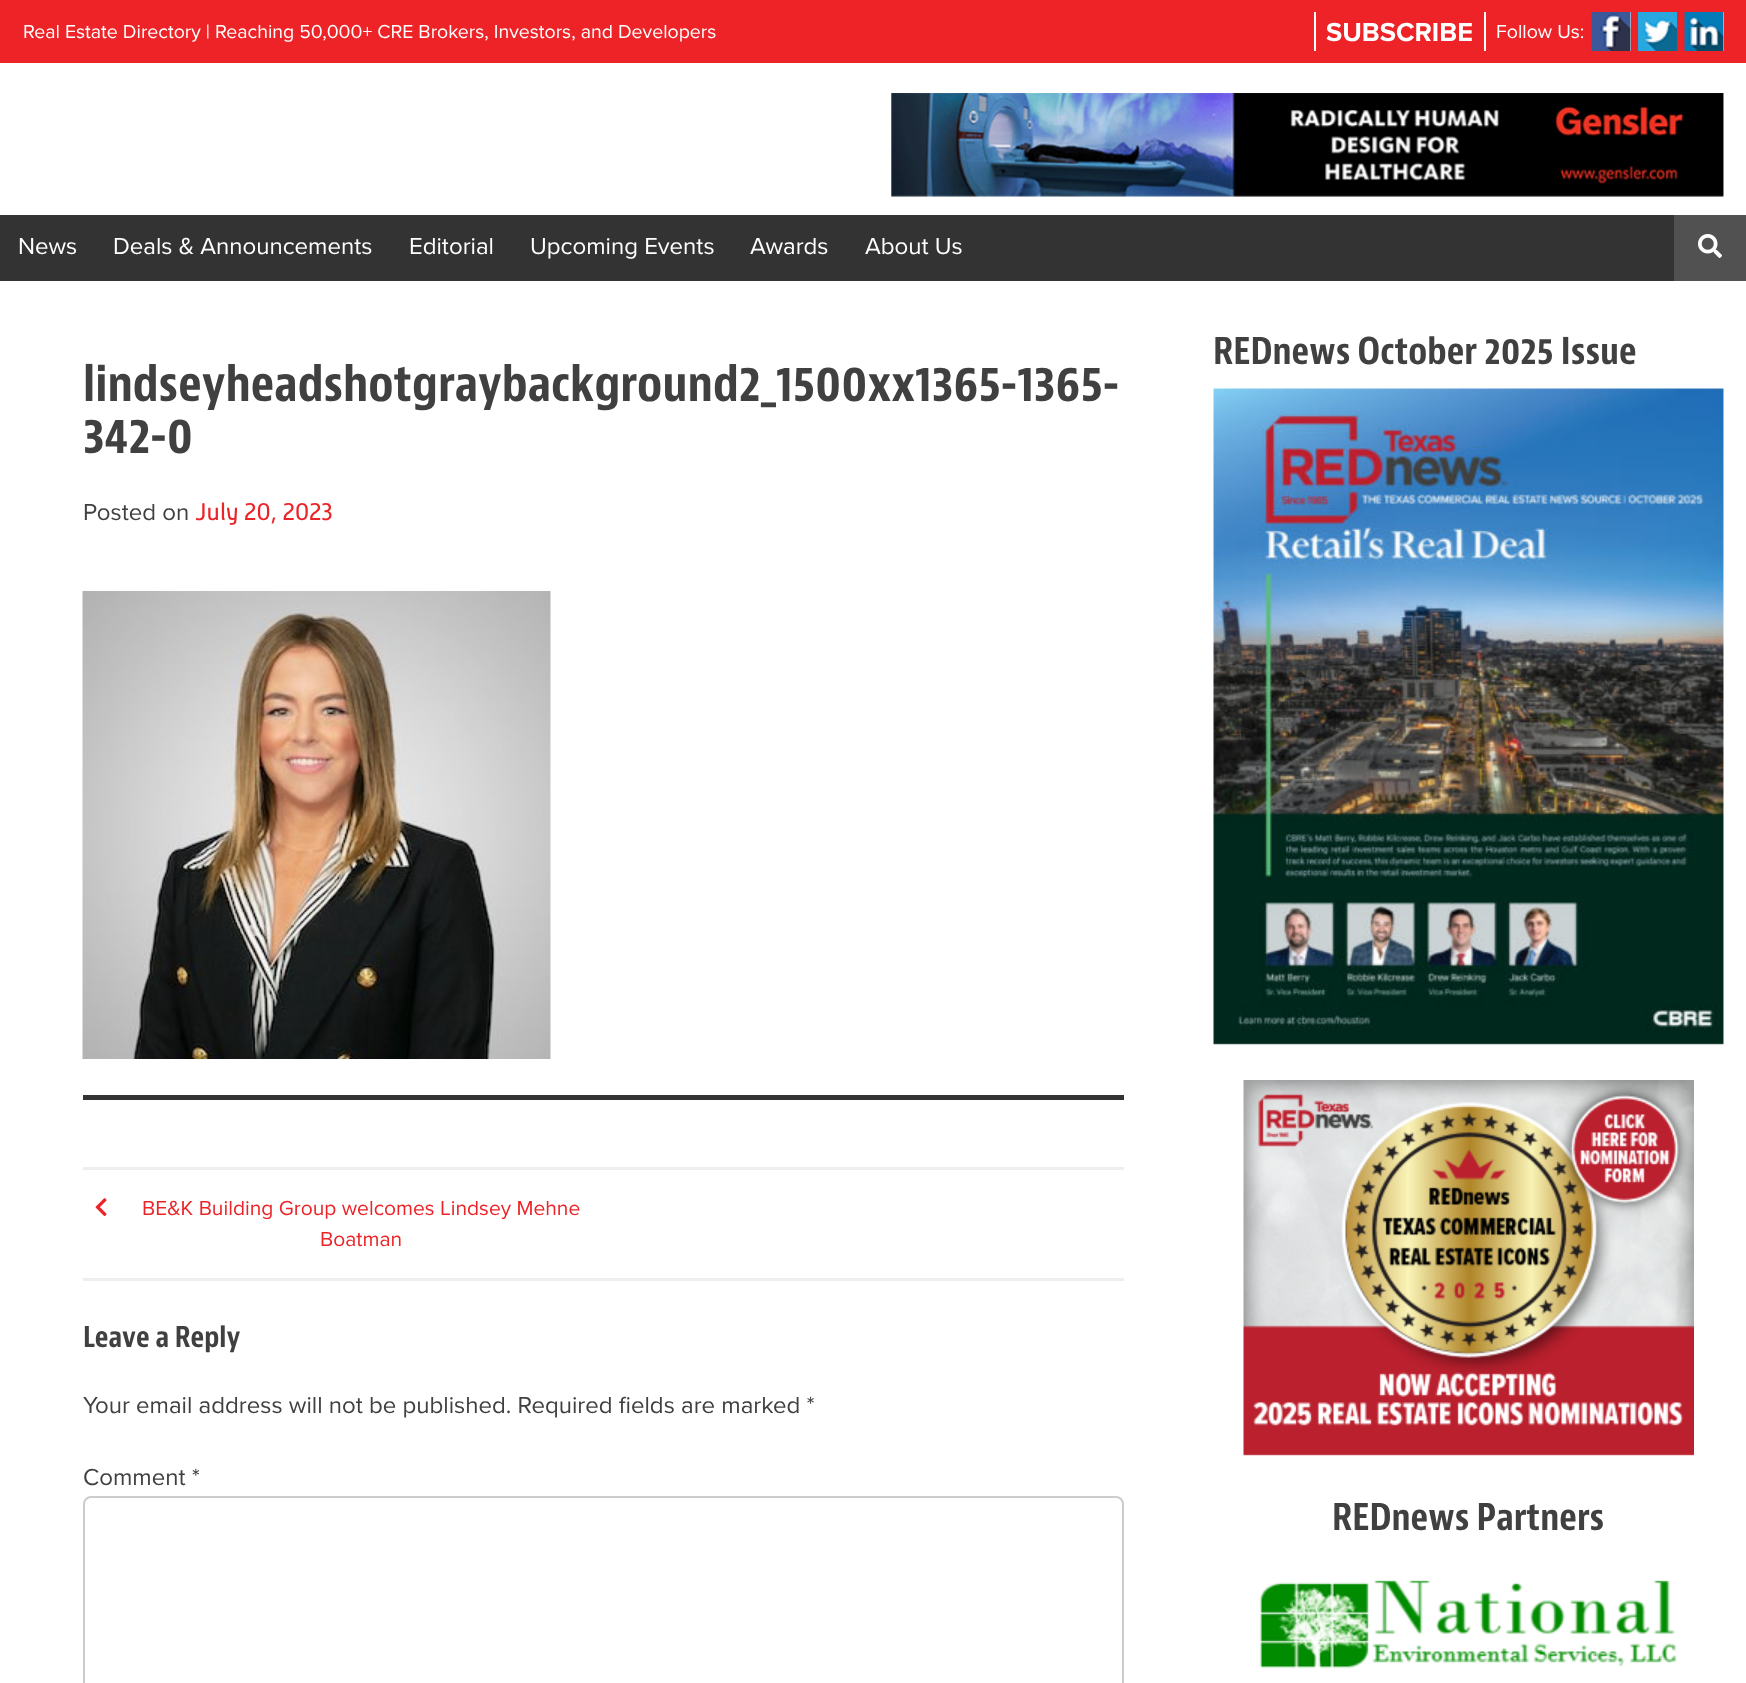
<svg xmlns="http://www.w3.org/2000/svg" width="1746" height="1683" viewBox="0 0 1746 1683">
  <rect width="100%" height="100%" fill="#fff"/>
  <path d="M0 0h1746v63H0z" fill="#ed2327"/>
  <path d="M1484 12h2v39H1484z" fill="#fff"/>
  <path d="M1314 12h2v39H1314z" fill="#fff"/>
  <path d="M1630 12h1v39H1630z" fill="#fff"/>
  <image x="1591" y="12" width="40" height="39" href="img/1.png"/>
  <image x="1638" y="12" width="39" height="39" href="img/2.png"/>
  <path d="M1723 12h1v39H1723z" fill="#fff"/>
  <image x="1684" y="12" width="40" height="39" href="img/3.png"/>
  <image x="891" y="93" width="833" height="104" href="img/4.png"/>
  <path d="M0 215h1674v66H0z" fill="#333"/>
  <path d="M1674 215h72v66H1674z" fill="#515151"/>
  <image x="1698" y="234" width="24" height="24" href="img/5.png"/>
  <image x="82" y="591" width="469" height="468" href="img/6.png"/>
  <path d="M83 1095h1041v5H83z" fill="#333"/>
  <path d="M83 1167h1041v3H83z" fill="#eee"/>
  <path d="M83 1278h1041v3H83z" fill="#eee"/>
  <image x="95" y="1198" width="12" height="19" href="img/7.png"/>
  <rect x="84" y="1497" width="1039" height="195" rx="7" fill="none" stroke="#ccc" stroke-width="2"/>
  <image x="1213" y="388" width="511" height="657" href="img/8.png"/>
  <image x="1243" y="1080" width="451" height="376" href="img/9.png"/>
  <image x="1259" y="1580" width="418" height="89" href="img/10.png"/>
  <text x="23" y="38" font-family="Proxima Nova" font-size="19.5" fill="#fff">Real Estate Directory | Reaching 50,000+ CRE Brokers, Investors, and Developers</text>
  <text x="1326" y="41" font-family="Proxima Nova" font-size="27" font-weight="bold" fill="#fff">SUBSCRIBE</text>
  <text x="1496" y="38" font-family="Proxima Nova" font-size="19.5" fill="#fff">Follow Us:</text>
  <g font-family="Proxima Nova" font-size="24" fill="#fff">
    <text x="18" y="254">News</text>
    <text x="113" y="254">Deals &amp; Announcements</text>
    <text x="409" y="254">Editorial</text>
    <text x="530" y="254">Upcoming Events</text>
    <text x="750" y="254">Awards</text>
    <text x="865" y="254">About Us</text>
  </g>
  <g font-family="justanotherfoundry" font-size="48" font-weight="bold" fill="#404040">
    <text x="83" y="401">lindseyheadshotgraybackground2_1500xx1365-1365-</text>
    <text x="83" y="453">342-0</text>
  </g>
  <text x="83" y="520" font-family="Proxima Nova" font-size="24" fill="#404040">Posted on</text>
  <text x="195" y="520" font-family="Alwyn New" font-size="24" fill="#ec2327">July 20, 2023</text>
  <g font-family="Proxima Nova" font-size="21" fill="#ec2327">
    <text x="142" y="1215">BE&amp;K Building Group welcomes Lindsey Mehne</text>
    <text x="320" y="1246">Boatman</text>
  </g>
  <text x="83" y="1347" font-family="justanotherfoundry" font-size="28" font-weight="bold" fill="#404040">Leave a Reply</text>
  <g font-family="Proxima Nova" font-size="24" fill="#404040">
    <text x="83" y="1413">Your email address will not be published. Required fields are marked *</text>
    <text x="83" y="1485">Comment *</text>
  </g>
  <g font-family="justanotherfoundry" font-size="36" font-weight="bold" fill="#404040">
    <text x="1213" y="364">REDnews October 2025 Issue</text>
    <text x="1332" y="1530">REDnews Partners</text>
  </g>
</svg>
